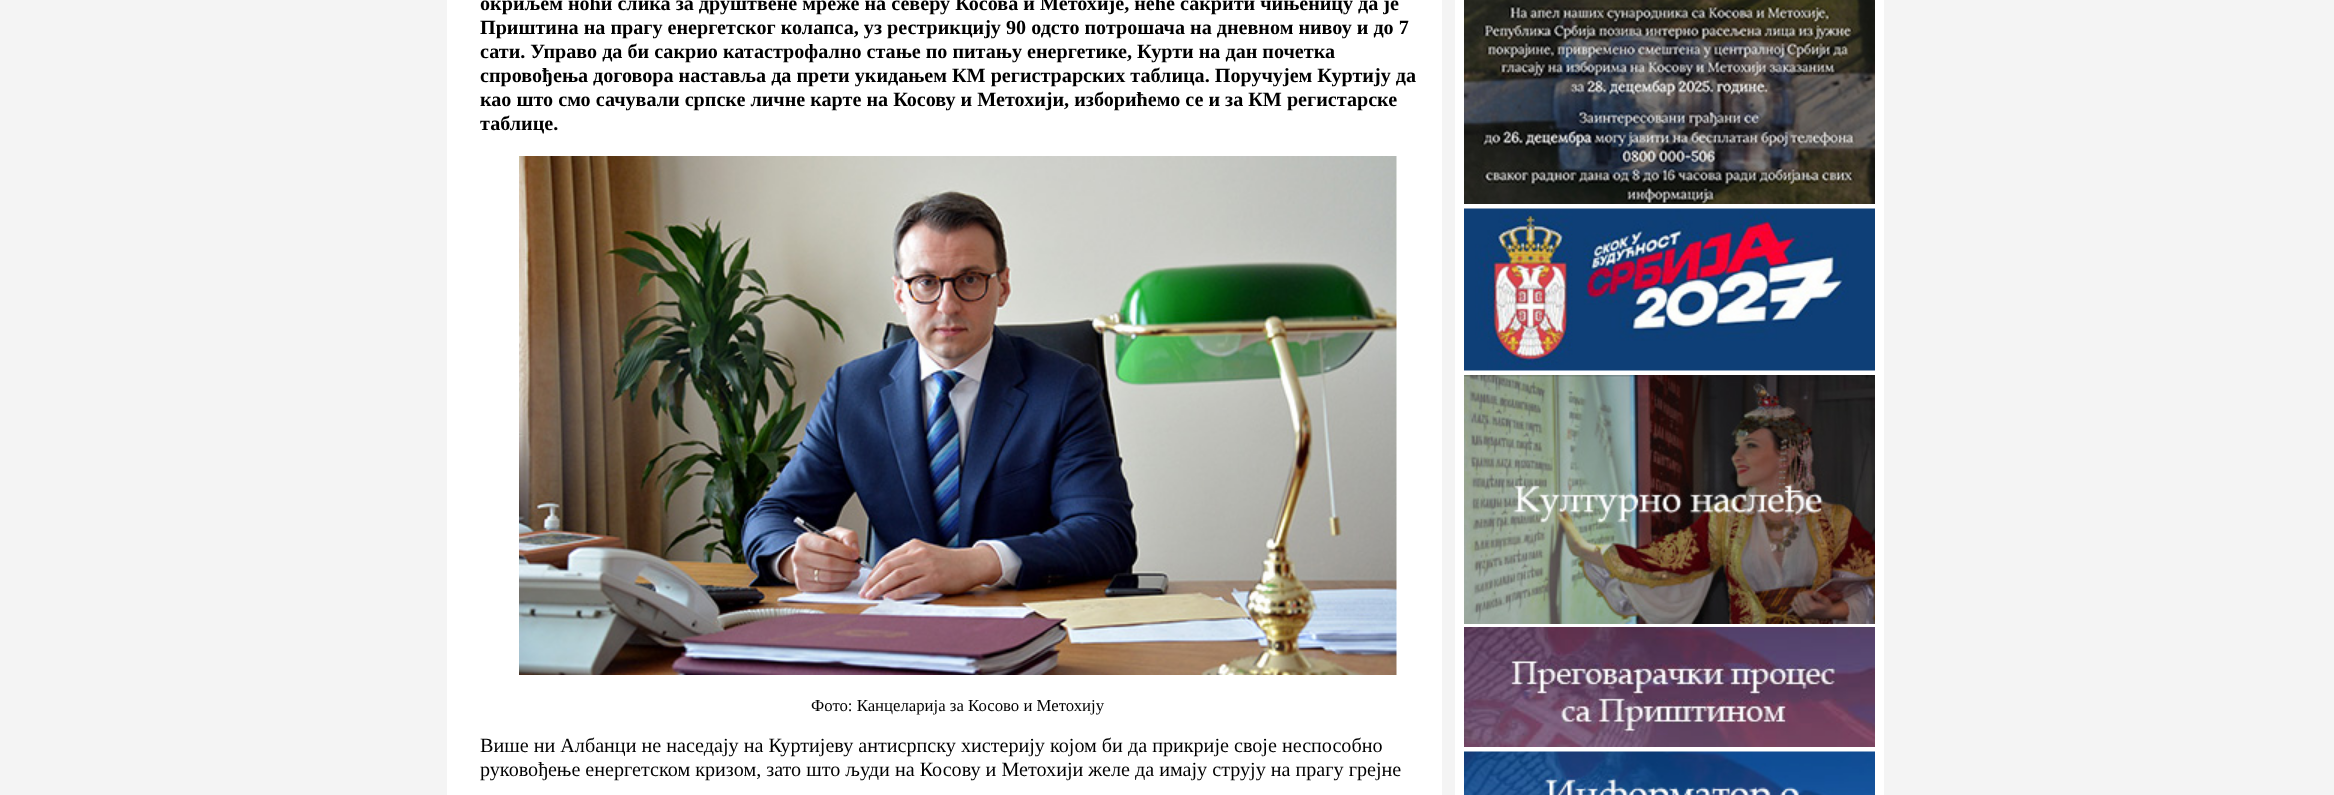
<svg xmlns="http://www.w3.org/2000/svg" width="2334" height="795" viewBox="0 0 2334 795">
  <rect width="100%" height="100%" fill="#f4f4f4"/>
  <path d="M447 0h995v795H447z" fill="#fff"/>
  <image x="519" y="156" width="878" height="519" href="img/1.png"/>
  <path d="M1455 0h429v795H1455z" fill="#fff"/>
  <image x="1464" y="0" width="411" height="204" href="img/2.png"/>
  <image x="1464" y="208" width="411" height="163" href="img/3.png"/>
  <image x="1464" y="375" width="411" height="249" href="img/4.png"/>
  <image x="1464" y="627" width="411" height="120" href="img/5.png"/>
  <image x="1464" y="751" width="411" height="44" href="img/6.png"/>
  <g font-family="Liberation Serif" font-size="20.15" font-weight="bold" fill="#000">
    <text x="480" y="10">окриљем ноћи слика за друштвене мреже на северу Косова и Метохије, неће сакрити чињеницу да је</text>
    <text x="480" y="34">Приштина на прагу енергетског колапса, уз рестрикцију 90 одсто потрошача на дневном нивоу и до 7</text>
    <text x="480" y="58">сати. Управо да би сакрио катастрофално стање по питању енергетике, Курти на дан почетка</text>
    <text x="480" y="82">спровођења договора наставља да прети укидањем КМ регистрарских таблица. Поручујем Куртију да</text>
    <text x="480" y="106">као што смо сачували српске личне карте на Косову и Метохији, изборићемо се и за КМ регистарске</text>
    <text x="480" y="130">таблице.</text>
  </g>
  <text x="811" y="711" font-family="Liberation Serif" font-size="16.75" fill="#000">Фото: Канцеларија за Косово и Метохију</text>
  <g font-family="Liberation Serif" font-size="20.15" fill="#000">
    <text x="480" y="752">Више ни Албанци не наседају на Куртијеву антисрпску хистерију којом би да прикрије своје неспособно</text>
    <text x="480" y="776">руковођење енергетском кризом, зато што људи на Косову и Метохији желе да имају струју на прагу грејне</text>
  </g>
</svg>
